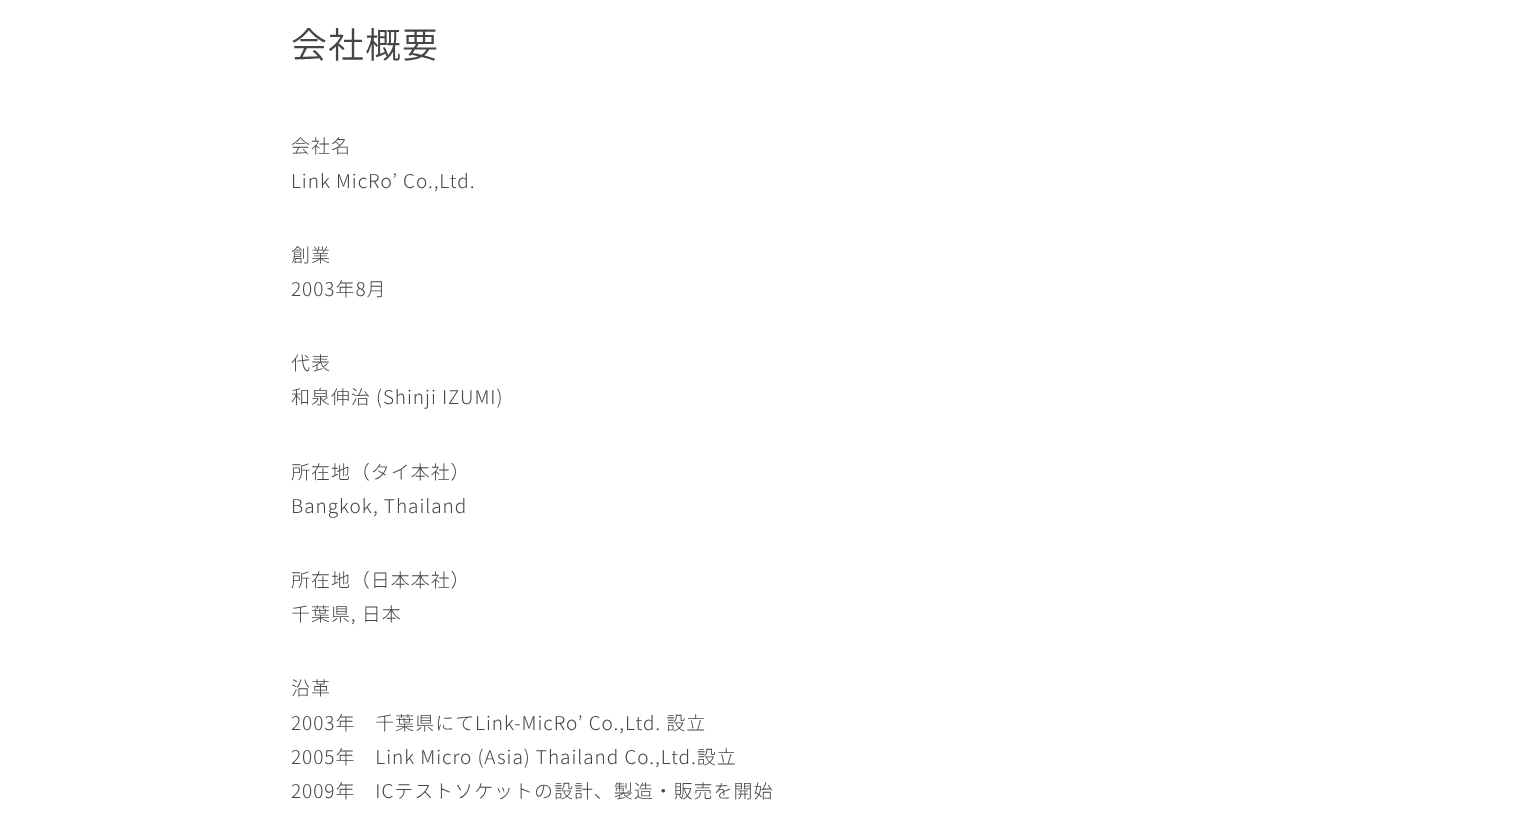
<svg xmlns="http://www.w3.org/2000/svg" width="1531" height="820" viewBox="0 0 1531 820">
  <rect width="100%" height="100%" fill="#fff"/>
  <text x="291" y="58" font-family="Noto Sans JP" font-size="36" font-weight="300" letter-spacing="1" fill="#454545">会社概要</text>
  <g font-family="'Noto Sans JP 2'" font-size="19" font-weight="300" letter-spacing="0.95" fill="#454545">
    <text x="291" y="153">会社名</text>
    <text x="291" y="188">Link MicRo’ Co.,Ltd.</text>
    <text x="291" y="262">創業</text>
    <text x="291" y="296">2003年8月</text>
    <text x="291" y="370">代表</text>
    <text x="291" y="404">和泉伸治 (Shinji IZUMI)</text>
    <text x="291" y="479">所在地（タイ本社）</text>
    <text x="291" y="513">Bangkok, Thailand</text>
    <text x="291" y="587">所在地（日本本社）</text>
    <text x="291" y="621">千葉県, 日本</text>
    <text x="291" y="695">沿革</text>
    <text x="291" y="730">2003年　千葉県にてLink-MicRo’ Co.,Ltd. 設立</text>
    <text x="291" y="764">2005年　Link Micro (Asia) Thailand Co.,Ltd.設立</text>
    <text x="291" y="798">2009年　ICテストソケットの設計、製造・販売を開始</text>
  </g>
</svg>
